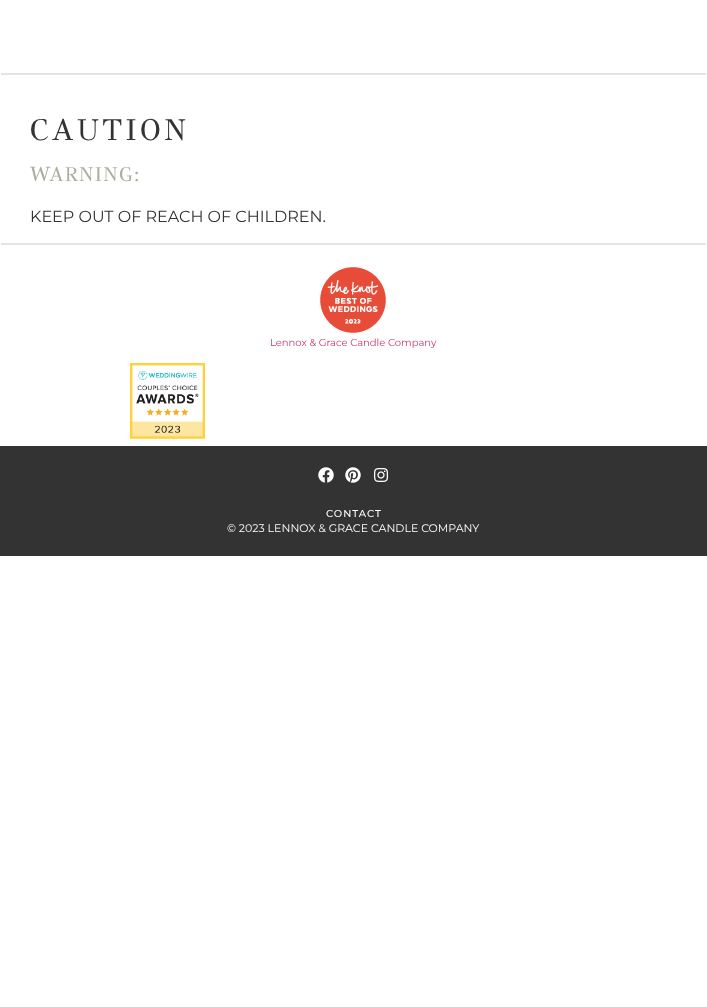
<svg xmlns="http://www.w3.org/2000/svg" width="707" height="1007" viewBox="0 0 707 1007">
  <rect width="100%" height="100%" fill="#fff"/>
  <path d="M1 73h705v2H1z" fill="#e5e5e0"/>
  <path d="M1 243h705v2H1z" fill="#e5e5e0"/>
  <image x="319" y="266" width="68" height="68" href="img/1.png"/>
  <image x="130" y="363" width="75" height="76" href="img/2.png"/>
  <path d="M0 446h707v110H0z" fill="#333"/>
  <image x="318" y="467" width="16" height="16" href="img/3.png"/>
  <image x="345" y="467" width="16" height="16" href="img/4.png"/>
  <image x="374" y="468" width="14" height="14" href="img/5.png"/>
  <text x="30" y="140" font-family="GFS Didot" font-size="30" letter-spacing="3" fill="#333">CAUTION</text>
  <text x="30" y="181" font-family="GFS Didot" font-size="20" letter-spacing="1" fill="#acae9d">WARNING:</text>
  <text x="30" y="222" font-family="Montserrat" font-size="16" fill="#333">KEEP OUT OF REACH OF CHILDREN.</text>
  <text x="270" y="346" font-family="Montserrat" font-size="10" fill="#c36">Lennox &amp; Grace Candle Company</text>
  <text x="326" y="517" font-family="Montserrat" font-size="10" font-weight="500" letter-spacing="1" fill="#fff">CONTACT</text>
  <text x="227" y="532" font-family="Montserrat" font-size="11" fill="#fff">© 2023 LENNOX &amp; GRACE CANDLE COMPANY</text>
</svg>
